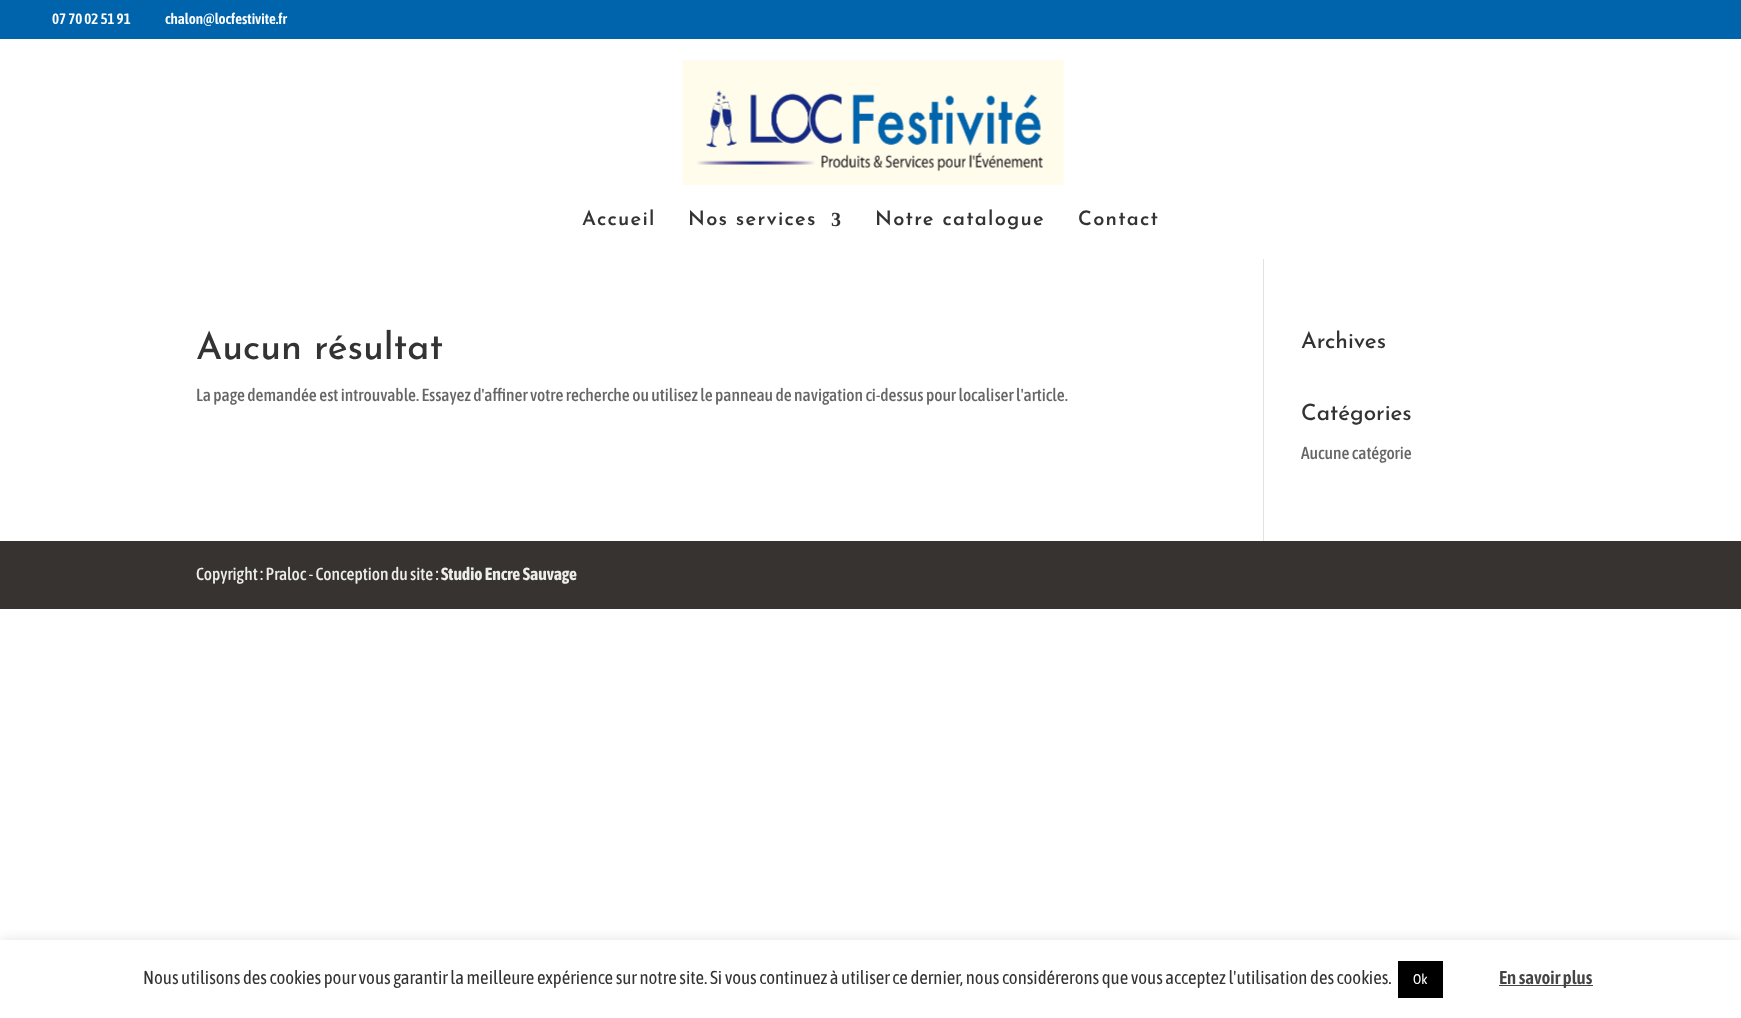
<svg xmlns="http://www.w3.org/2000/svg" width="1741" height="1018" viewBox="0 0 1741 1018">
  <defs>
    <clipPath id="clip1"><path d="M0 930h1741v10H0z"/></clipPath>
  </defs>
  <rect width="100%" height="100%" fill="#fff"/>
  <path d="M0 0h1741v39H0z" fill="#0064ac"/>
  <image x="682" y="60" width="382" height="125" href="img/1.png"/>
  <path d="M1263 259h1v282H1263z" fill="#e2e2e2"/>
  <path d="M0 541h1741v68H0z" fill="#363331"/>
  <g clip-path="url(#clip1)">
    <path d="M0 939h1741v79H0z" fill="#acabab4d" filter="blur(6px)"/>
  </g>
  <path d="M1398 961h45v37H1398z" fill="#000"/>
  <path d="M1499 985h94v1H1499z" fill="#444"/>
  <g font-family="Asap Condensed" font-size="15" font-weight="600" fill="#fff">
    <text x="52" y="24">07 70 02 51 91</text>
    <text x="165" y="24">chalon@locfestivite.fr</text>
  </g>
  <g font-family="Josefin Sans" font-size="20" font-weight="600" letter-spacing="1.25" fill="#333">
    <text x="582" y="225">Accueil</text>
    <text x="688" y="225">Nos services</text>
  </g>
  <text x="831" y="226" font-family="Liberation Serif" font-size="20" font-weight="bold" letter-spacing="1.25" fill="#333">3</text>
  <g font-family="Josefin Sans" font-size="20" font-weight="600" letter-spacing="1.25" fill="#333">
    <text x="875" y="225">Notre catalogue</text>
    <text x="1078" y="225">Contact</text>
  </g>
  <text x="196" y="359" font-family="Josefin Sans" font-size="37.5" font-weight="500" fill="#333">Aucun résultat</text>
  <text x="196" y="401" font-family="Asap Condensed" font-size="17.5" font-weight="500" fill="#666">La page demandée est introuvable. Essayez d'affiner votre recherche ou utilisez le panneau de navigation ci-dessus pour localiser l'article.</text>
  <g font-family="Josefin Sans" font-size="22.5" font-weight="500" fill="#333">
    <text x="1301" y="348">Archives</text>
    <text x="1301" y="420">Catégories</text>
  </g>
  <text x="1301" y="459" font-family="Asap Condensed" font-size="17.5" font-weight="500" fill="#666">Aucune catégorie</text>
  <text x="196" y="580" font-family="Asap Condensed" font-size="17.5" font-weight="500" fill="#edede9">Copyright : Praloc - Conception du site :</text>
  <text x="441" y="580" font-family="Asap Condensed" font-size="17.5" font-weight="bold" fill="#edede9">Studio Encre Sauvage</text>
  <text x="143" y="984" font-family="Asap Condensed" font-size="18.75" fill="#333">Nous utilisons des cookies pour vous garantir la meilleure expérience sur notre site. Si vous continuez à utiliser ce dernier, nous considérerons que vous acceptez l'utilisation des cookies.</text>
  <text x="1413" y="984" font-family="Asap Condensed" font-size="14" fill="#fff">Ok</text>
  <text x="1499" y="984" font-family="Asap Condensed" font-size="18.75" font-weight="600" fill="#444">En savoir plus</text>
</svg>
